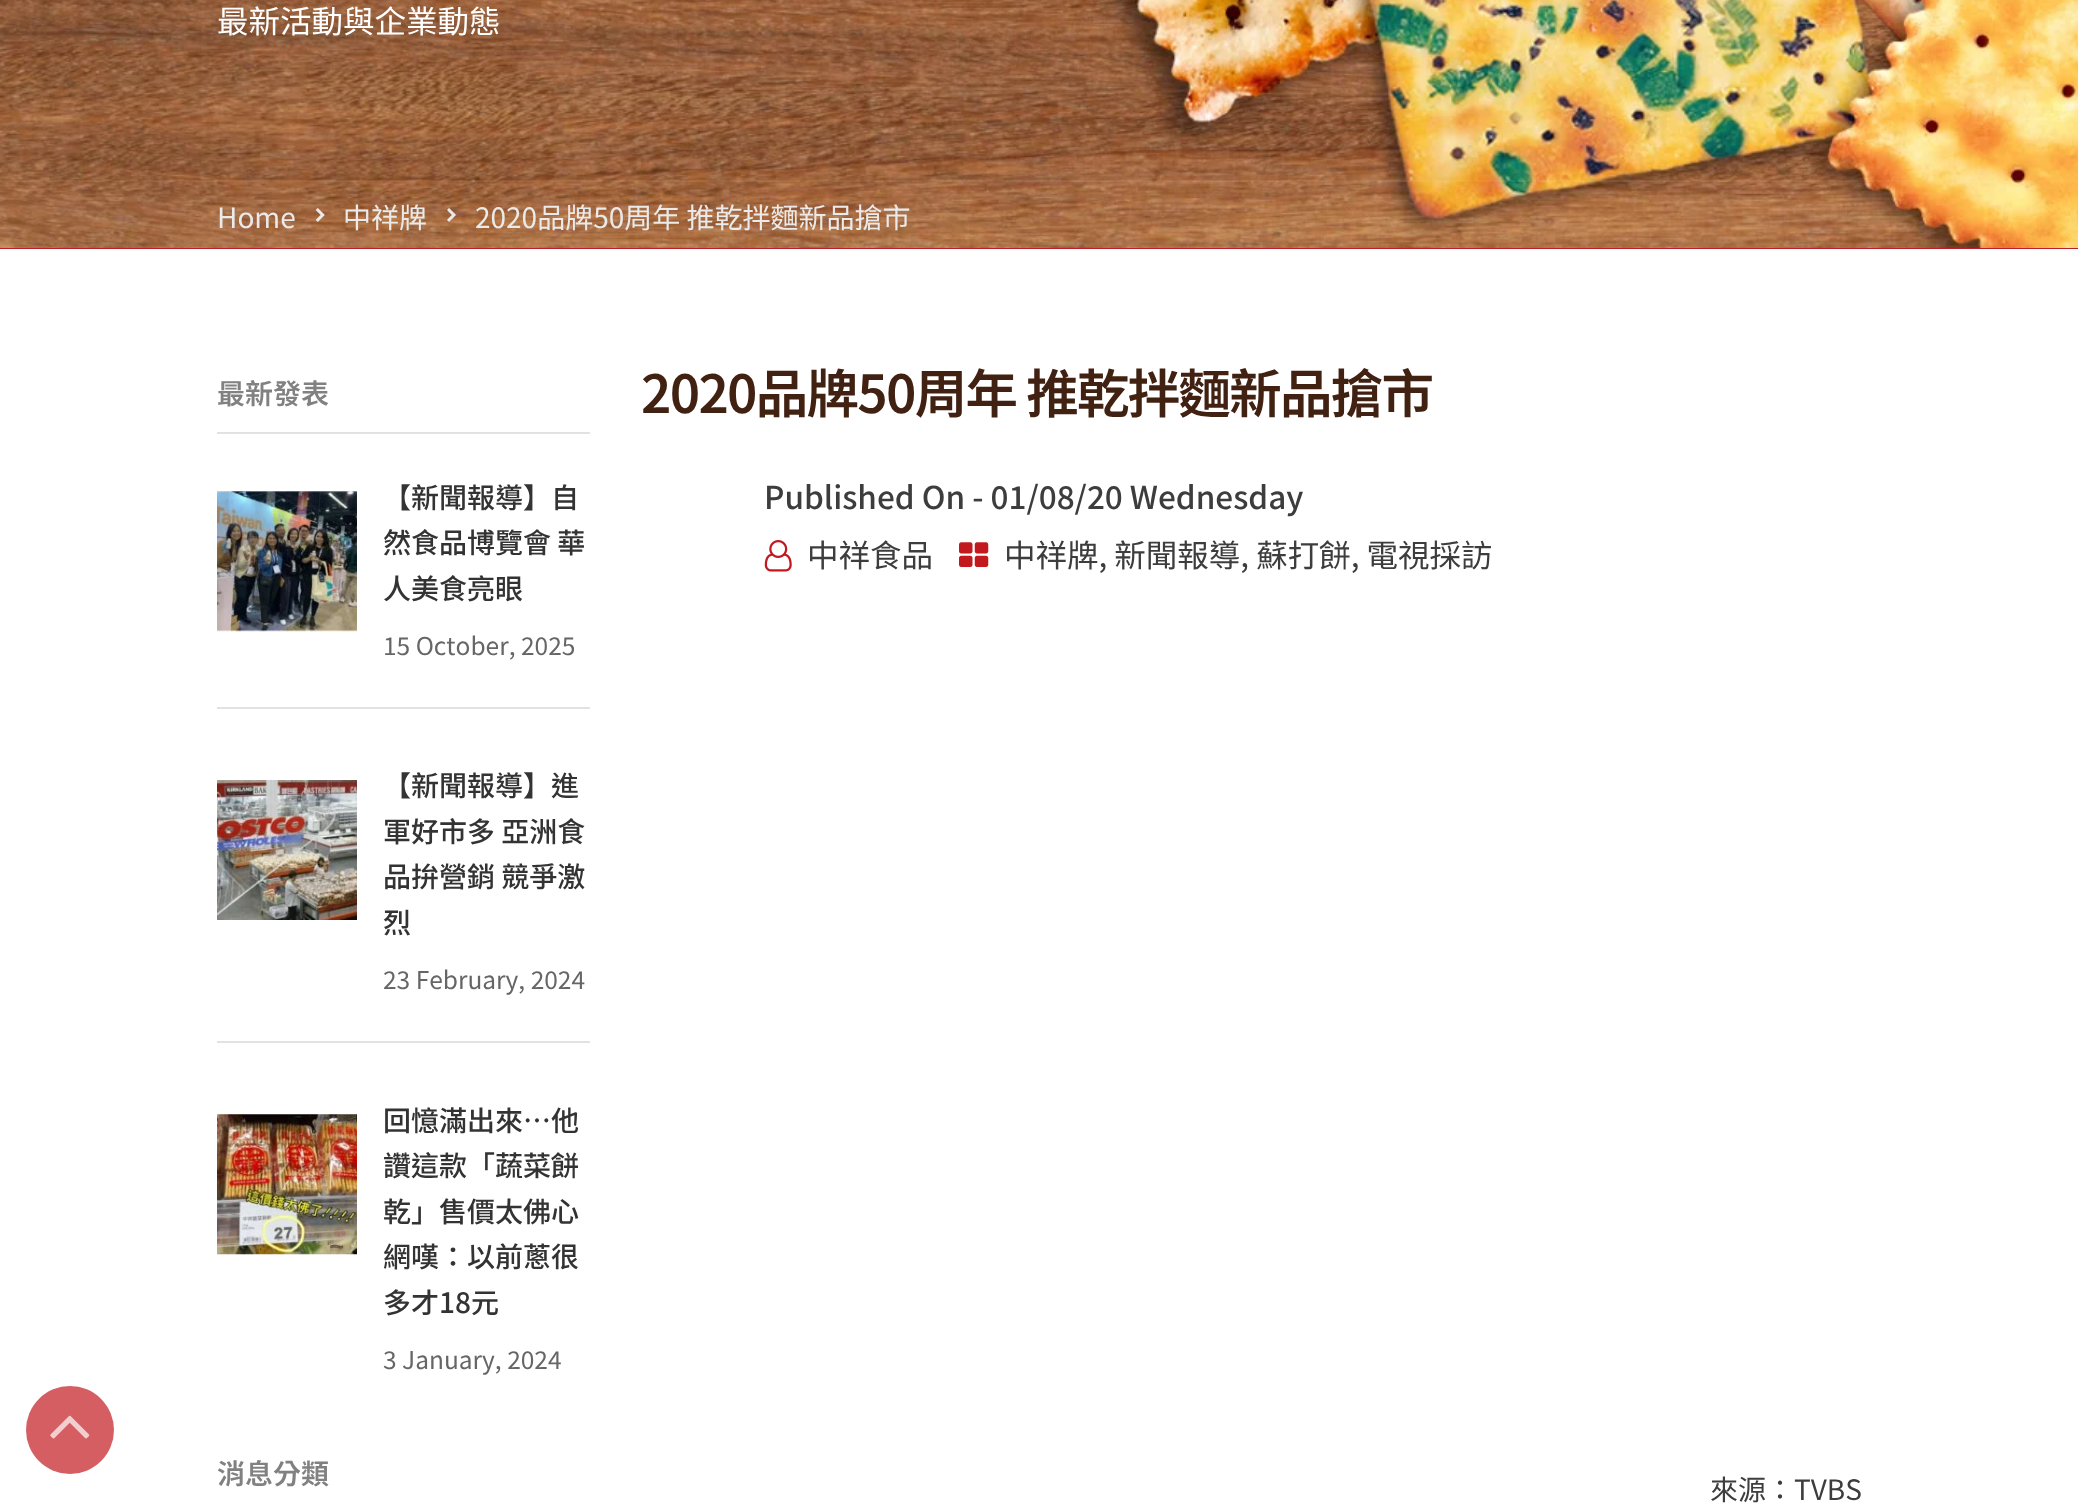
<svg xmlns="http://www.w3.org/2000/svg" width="2078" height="1508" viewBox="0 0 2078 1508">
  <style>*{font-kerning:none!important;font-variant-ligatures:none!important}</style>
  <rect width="100%" height="100%" fill="#fff"/>
  <circle cx="70" cy="1430" r="44" fill="#d45e62"/>
  <image x="50" y="1415" width="40" height="24" href="img/1.png"/>
  <path d="M0 248h2078v1H0z" fill="#b71f2c"/>
  <image x="0" y="0" width="2078" height="248" href="img/2.png"/>
  <path d="M0 180h2078v2H0z" fill="#f9e4ca12"/>
  <image x="315" y="208" width="10" height="14" href="img/3.png"/>
  <image x="447" y="208" width="9" height="14" href="img/4.png"/>
  <path d="M217 432h373v2H217z" fill="#e2e2e2"/>
  <path d="M217 707h373v2H217z" fill="#e2e2e2"/>
  <image x="217" y="491" width="140" height="141" href="img/5.png"/>
  <path d="M217 1041h373v2H217z" fill="#e2e2e2"/>
  <image x="217" y="780" width="140" height="140" href="img/6.png"/>
  <image x="217" y="1114" width="140" height="141" href="img/7.png"/>
  <image x="764" y="540" width="28" height="32" href="img/8.png"/>
  <image x="959" y="542" width="30" height="25" href="img/9.png"/>
  <text x="217" y="33" font-family="Noto Sans TC" font-size="31.5" fill="#fff">最新活動與企業動態</text>
  <g font-family="Noto Sans TC" font-size="28" fill="#eaeaea">
    <text x="217" y="228">Home</text>
    <text x="343" y="228">中祥牌</text>
    <text x="475" y="228">2020品牌50周年 推乾拌麵新品搶市</text>
  </g>
  <text x="217" y="404" font-family="Noto Sans TC" font-size="28" font-weight="600" fill="#818181">最新發表</text>
  <g font-family="Noto Sans TC" font-size="28" font-weight="500" fill="#333">
    <text x="383" y="508">【新聞報導】自</text>
    <text x="383" y="553">然食品博覽會 華</text>
    <text x="383" y="599">人美食亮眼</text>
  </g>
  <text x="383" y="655" font-family="Noto Sans TC" font-size="24.5" fill="#666">15 October, 2025</text>
  <g font-family="Noto Sans TC" font-size="28" font-weight="500" fill="#333">
    <text x="383" y="796">【新聞報導】進</text>
    <text x="383" y="842">軍好市多 亞洲食</text>
    <text x="383" y="887">品拚營銷 競爭激</text>
    <text x="383" y="933">烈</text>
  </g>
  <text x="383" y="989" font-family="Noto Sans TC" font-size="24.5" fill="#666">23 February, 2024</text>
  <g font-family="Noto Sans TC" font-size="28" font-weight="500" fill="#333">
    <text x="383" y="1131">回憶滿出來…他</text>
    <text x="383" y="1176">讚這款「蔬菜餅</text>
    <text x="383" y="1222">乾」售價太佛心</text>
    <text x="383" y="1267">網嘆：以前蔥很</text>
    <text x="383" y="1313">多才18元</text>
  </g>
  <text x="383" y="1369" font-family="Noto Sans TC" font-size="24.5" fill="#666">3 January, 2024</text>
  <text x="217" y="1484" font-family="Noto Sans TC" font-size="28" font-weight="600" fill="#818181">消息分類</text>
  <text x="641" y="413" font-family="Noto Sans TC" font-size="52.5" font-weight="600" letter-spacing="-1.75" fill="#412212">2020品牌50周年 推乾拌麵新品搶市</text>
  <text x="764" y="509" font-family="Noto Sans TC" font-size="31.5" font-weight="500" fill="#3d3d3d">Published On - 01/08/20 Wednesday</text>
  <g font-family="Noto Sans TC" font-size="31.5" fill="#3d3d3d">
    <text x="807" y="567">中祥食品</text>
    <text x="1004" y="567">中祥牌, 新聞報導, 蘇打餅, 電視採訪</text>
  </g>
  <text x="1710" y="1500" font-family="Noto Sans TC" font-size="28" fill="#3d3d3d">來源：TVBS</text>
</svg>
